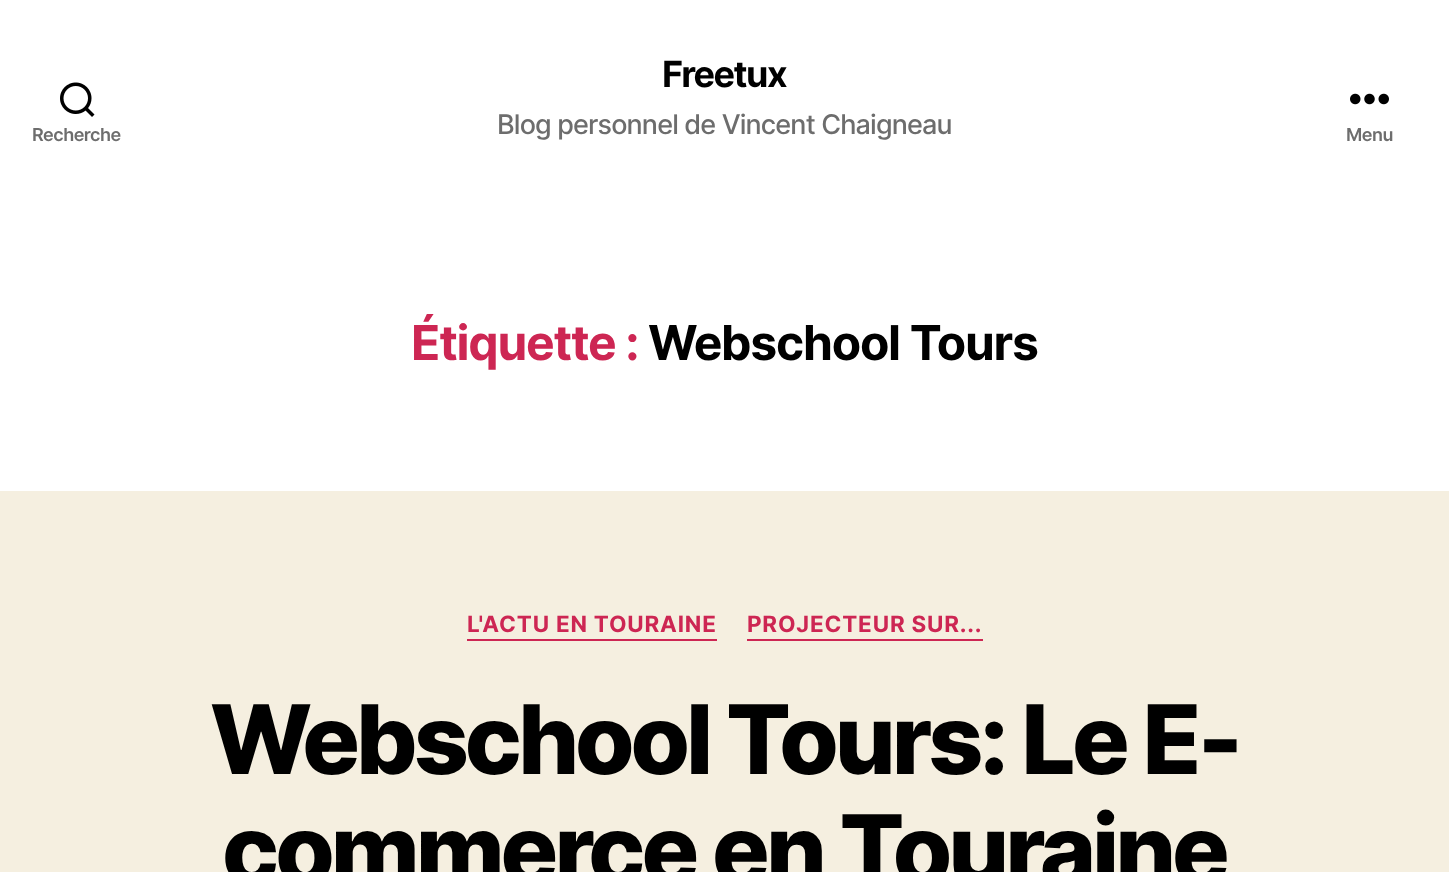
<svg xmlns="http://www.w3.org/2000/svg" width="1449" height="872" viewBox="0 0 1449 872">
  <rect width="100%" height="100%" fill="#f5efe0"/>
  <path d="M0 0h1449v491H0z" fill="#fff"/>
  <image x="60" y="82" width="35" height="35" href="img/1.png"/>
  <image x="1350" y="93" width="39" height="12" href="img/2.png"/>
  <path d="M467 639h250v2H467z" fill="#cd2653"/>
  <path d="M747 639h236v2H747z" fill="#cd2653"/>
  <text x="32" y="141" font-family="Inter" font-size="18" font-weight="600" letter-spacing="-0.5" fill="#6d6d6d">Recherche</text>
  <text x="662" y="87" font-family="Inter" font-size="36" font-weight="bold" letter-spacing="-1.5" fill="#000">Freetux</text>
  <text x="497" y="134" font-family="Inter" font-size="27" font-weight="500" letter-spacing="-0.85" fill="#6d6d6d">Blog personnel de Vincent Chaigneau</text>
  <text x="1346" y="141" font-family="Inter" font-size="18" font-weight="600" letter-spacing="-0.5" fill="#6d6d6d">Menu</text>
  <text x="411" y="360" font-family="Inter" font-size="48" font-weight="bold" letter-spacing="-1.25" fill="#cd2653">Étiquette :</text>
  <text x="648" y="360" font-family="Inter" font-size="48" font-weight="bold" letter-spacing="-1.25" fill="#000">Webschool Tours</text>
  <g font-family="Inter" font-size="22.5" font-weight="bold" letter-spacing="0.8" fill="#cd2653">
    <text x="467" y="632">L'ACTU EN TOURAINE</text>
    <text x="747" y="632">PROJECTEUR SUR...</text>
  </g>
  <g font-family="Inter" font-size="96" font-weight="800" letter-spacing="-4" fill="#000">
    <text x="210" y="774">Webschool Tours: Le E-</text>
    <text x="222" y="884">commerce en Touraine</text>
  </g>
</svg>
